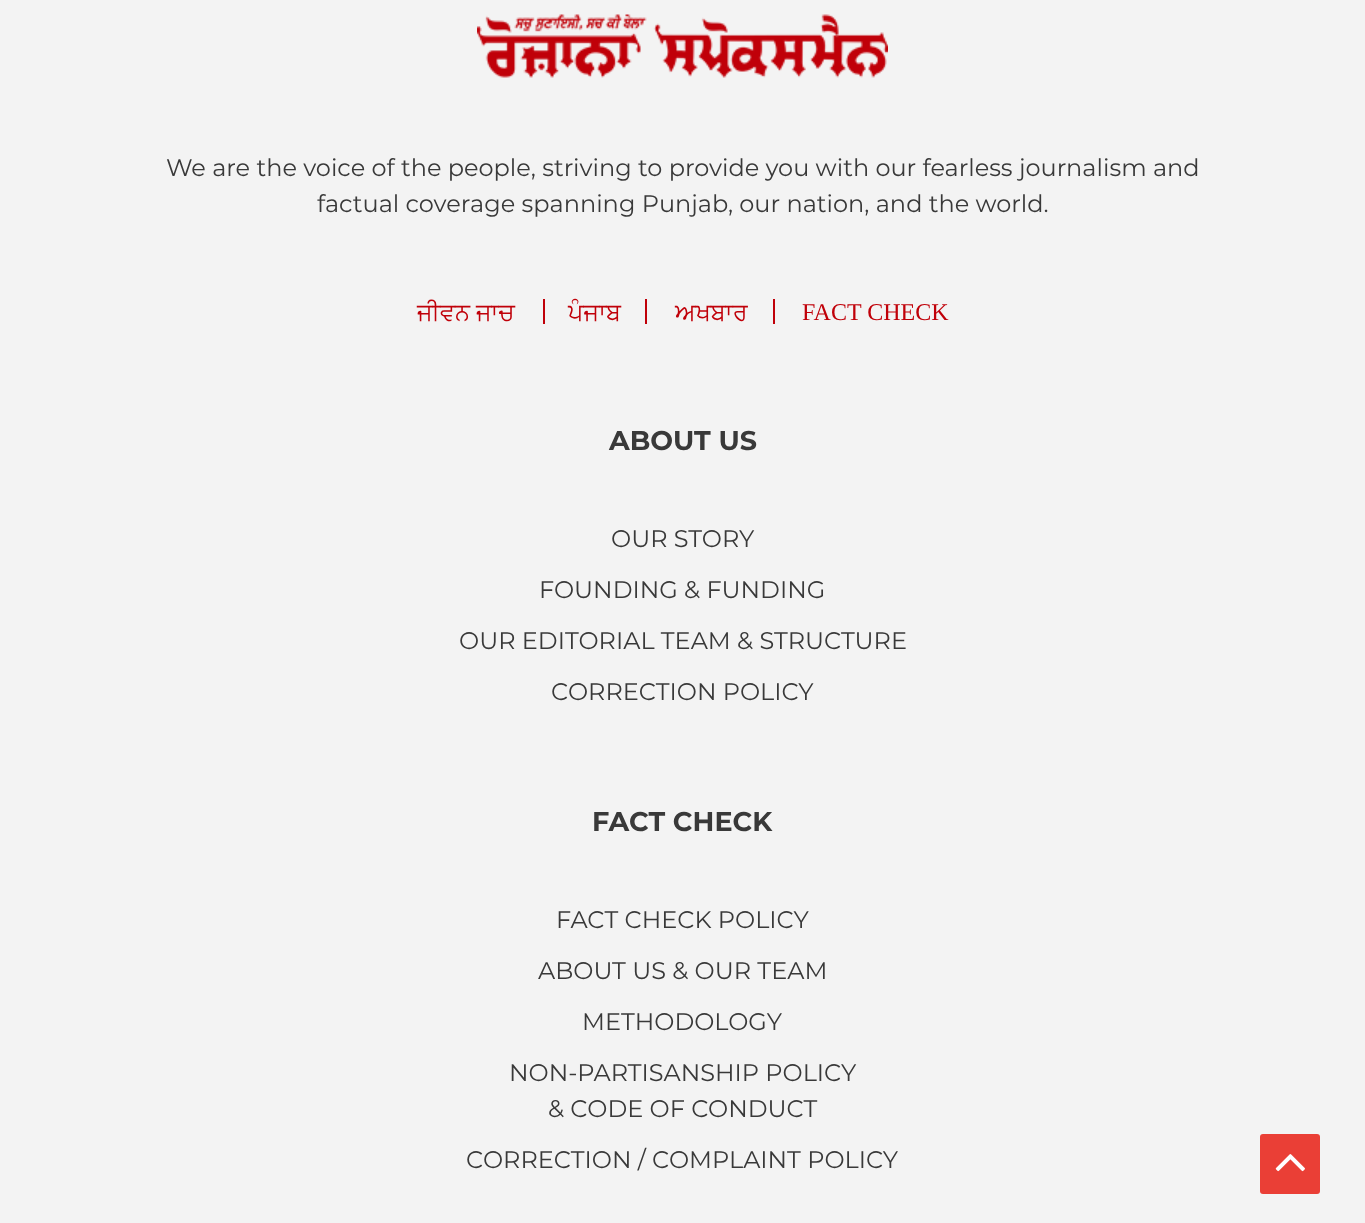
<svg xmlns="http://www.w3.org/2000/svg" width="1365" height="1223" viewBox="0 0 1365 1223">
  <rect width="100%" height="100%" fill="#f3f3f3"/>
  <image x="477" y="14" width="411" height="64" href="img/1.png"/>
  <path d="M645 299h2v25H645z" fill="#c00009"/>
  <path d="M543 299h2v25H543z" fill="#c00009"/>
  <path d="M773 299h2v25H773z" fill="#c00009"/>
  <rect x="1260" y="1134" width="60" height="60" rx="3" fill="#ea3f36"/>
  <image x="1275" y="1154" width="30" height="18" href="img/2.png"/>
  <g font-family="Montserrat" font-size="24" fill="#393939">
    <text x="166" y="176">We are the voice of the people, striving to provide you with our fearless journalism and</text>
    <text x="317" y="212">factual coverage spanning Punjab, our nation, and the world.</text>
  </g>
  <g font-family="FreeSans" font-size="24" fill="#c00009">
    <text x="417" y="320">ਜੀਵਨ ਜਾਚ</text>
    <text x="568" y="320">ਪੰਜਾਬ</text>
    <text x="675" y="320">ਅਖਬਾਰ</text>
  </g>
  <text x="802" y="320" font-family="Liberation Serif" font-size="24" fill="#c00009">FACT CHECK</text>
  <text x="609" y="450" font-family="Montserrat" font-size="27" font-weight="bold" fill="#393939">ABOUT US</text>
  <g font-family="Montserrat" font-size="24" fill="#393939">
    <text x="611" y="547">OUR STORY</text>
    <text x="539" y="598">FOUNDING &amp; FUNDING</text>
    <text x="459" y="649">OUR EDITORIAL TEAM &amp; STRUCTURE</text>
    <text x="551" y="700">CORRECTION POLICY</text>
  </g>
  <text x="592" y="831" font-family="Montserrat" font-size="27" font-weight="bold" fill="#393939">FACT CHECK</text>
  <g font-family="Montserrat" font-size="24" fill="#393939">
    <text x="556" y="928">FACT CHECK POLICY</text>
    <text x="538" y="979">ABOUT US &amp; OUR TEAM</text>
    <text x="582" y="1030">METHODOLOGY</text>
    <text x="509" y="1081">NON-PARTISANSHIP POLICY</text>
    <text x="548" y="1117">&amp; CODE OF CONDUCT</text>
    <text x="466" y="1168">CORRECTION / COMPLAINT POLICY</text>
  </g>
</svg>
